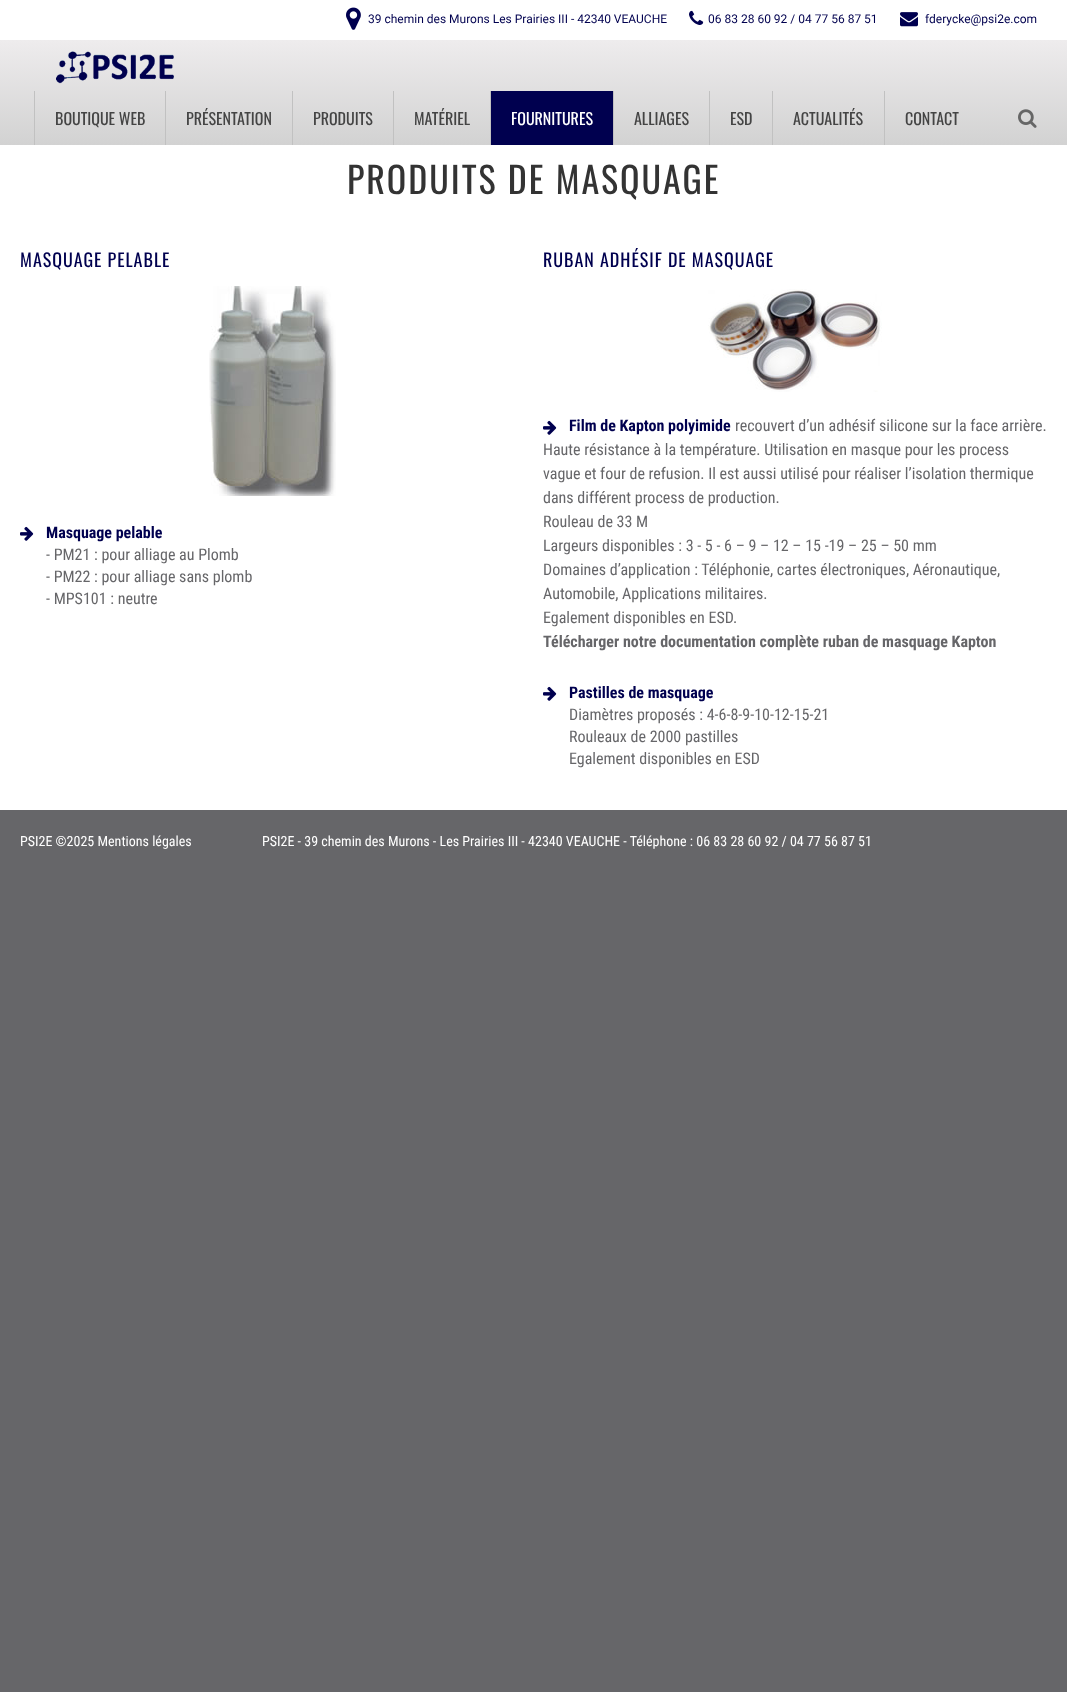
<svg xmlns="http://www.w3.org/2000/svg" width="1067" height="1692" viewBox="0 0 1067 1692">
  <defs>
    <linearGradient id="g1" gradientUnits="userSpaceOnUse" x1="534" y1="40" x2="534" y2="145"><stop offset="0" stop-color="#eeeced"/><stop offset="1" stop-color="#d2d2d2"/></linearGradient>
  </defs>
  <rect width="100%" height="100%" fill="#666669"/>
  <path d="M0 0h1067v810H0z" fill="#fff"/>
  <image x="346" y="7" width="15" height="23" href="img/1.png"/>
  <image x="689" y="10" width="15" height="15" href="img/2.png"/>
  <image x="900" y="12" width="18" height="15" href="img/3.png"/>
  <path d="M0 40h1067v105H0z" fill="url(#g1)"/>
  <image x="56" y="51" width="118" height="33" href="img/4.png"/>
  <path d="M34 91h1v54H34z" fill="#c1c1c1"/>
  <path d="M165 91h1v54H165z" fill="#c1c1c1"/>
  <path d="M292 91h1v54H292z" fill="#c1c1c1"/>
  <path d="M393 91h1v54H393z" fill="#c1c1c1"/>
  <path d="M490 91h1v54H490z" fill="#c1c1c1"/>
  <path d="M491 91h122v54H491z" fill="#00004f"/>
  <path d="M613 91h1v54H613z" fill="#c1c1c1"/>
  <path d="M709 91h1v54H709z" fill="#c1c1c1"/>
  <path d="M772 91h1v54H772z" fill="#c1c1c1"/>
  <path d="M884 91h1v54H884z" fill="#c1c1c1"/>
  <image x="1018" y="109" width="19" height="19" href="img/5.png"/>
  <image x="209" y="286" width="127" height="210" href="img/6.png"/>
  <image x="20" y="526" width="14" height="15" href="img/7.png"/>
  <image x="708" y="289" width="174" height="103" href="img/8.png"/>
  <image x="543" y="420" width="14" height="15" href="img/7.png"/>
  <image x="543" y="686" width="14" height="15" href="img/7.png"/>
  <g font-family="Roboto" font-size="12" fill="#00004f">
    <text x="368" y="23">39 chemin des Murons Les Prairies III - 42340 VEAUCHE</text>
    <text x="708" y="23">06 83 28 60 92 / 04 77 56 87 51</text>
    <text x="925" y="23">fderycke@psi2e.com</text>
  </g>
  <g font-family="Oswald" font-size="16" fill="#444">
    <text x="55" y="125">BOUTIQUE WEB</text>
    <text x="186" y="125">PRÉSENTATION</text>
    <text x="313" y="125">PRODUITS</text>
    <text x="414" y="125">MATÉRIEL</text>
  </g>
  <text x="511" y="125" font-family="Oswald" font-size="16" fill="#fff">FOURNITURES</text>
  <g font-family="Oswald" font-size="16" fill="#444">
    <text x="634" y="125">ALLIAGES</text>
    <text x="730" y="125">ESD</text>
    <text x="793" y="125">ACTUALITÉS</text>
    <text x="905" y="125">CONTACT</text>
  </g>
  <text x="347" y="194" font-family="Oswald" font-size="36" letter-spacing="2" fill="#333">PRODUITS DE MASQUAGE</text>
  <text x="20" y="267" font-family="Oswald" font-size="18" letter-spacing="1" fill="#00004f">MASQUAGE PELABLE</text>
  <text x="46" y="538" font-family="Roboto Condensed" font-size="16" font-weight="bold" fill="#00004f">Masquage pelable</text>
  <g font-family="Roboto Condensed" font-size="16" fill="#666669">
    <text x="46" y="560">- PM21 : pour alliage au Plomb</text>
    <text x="46" y="582">- PM22 : pour alliage sans plomb</text>
    <text x="46" y="604">- MPS101 : neutre</text>
  </g>
  <text x="543" y="267" font-family="Oswald" font-size="18" letter-spacing="1" fill="#00004f">RUBAN ADHÉSIF DE MASQUAGE</text>
  <text x="569" y="431" font-family="Roboto Condensed" font-size="16" font-weight="bold" fill="#00004f">Film de Kapton polyimide</text>
  <g font-family="Roboto Condensed" font-size="16" fill="#666669">
    <text x="735" y="431">recouvert d’un adhésif silicone sur la face arrière.</text>
    <text x="543" y="455">Haute résistance à la température. Utilisation en masque pour les process</text>
    <text x="543" y="479">vague et four de refusion. Il est aussi utilisé pour réaliser l’isolation thermique</text>
    <text x="543" y="503">dans différent process de production.</text>
    <text x="543" y="527">Rouleau de 33 M</text>
    <text x="543" y="551">Largeurs disponibles : 3 - 5 - 6 – 9 – 12 – 15 -19 – 25 – 50 mm</text>
    <text x="543" y="575">Domaines d’application : Téléphonie, cartes électroniques, Aéronautique,</text>
    <text x="543" y="599">Automobile, Applications militaires.</text>
    <text x="543" y="623">Egalement disponibles en ESD.</text>
  </g>
  <text x="543" y="647" font-family="Roboto Condensed" font-size="16" font-weight="bold" fill="#666669">Télécharger notre documentation complète ruban de masquage Kapton</text>
  <text x="569" y="698" font-family="Roboto Condensed" font-size="16" font-weight="bold" fill="#00004f">Pastilles de masquage</text>
  <g font-family="Roboto Condensed" font-size="16" fill="#666669">
    <text x="569" y="720">Diamètres proposés : 4-6-8-9-10-12-15-21</text>
    <text x="569" y="742">Rouleaux de 2000 pastilles</text>
    <text x="569" y="764">Egalement disponibles en ESD</text>
  </g>
  <g font-family="Roboto Condensed" font-size="14" fill="#fff">
    <text x="20" y="846">PSI2E ©2025 Mentions légales</text>
    <text x="262" y="846">PSI2E - 39 chemin des Murons - Les Prairies III - 42340 VEAUCHE - Téléphone : 06 83 28 60 92 / 04 77 56 87 51</text>
  </g>
</svg>
